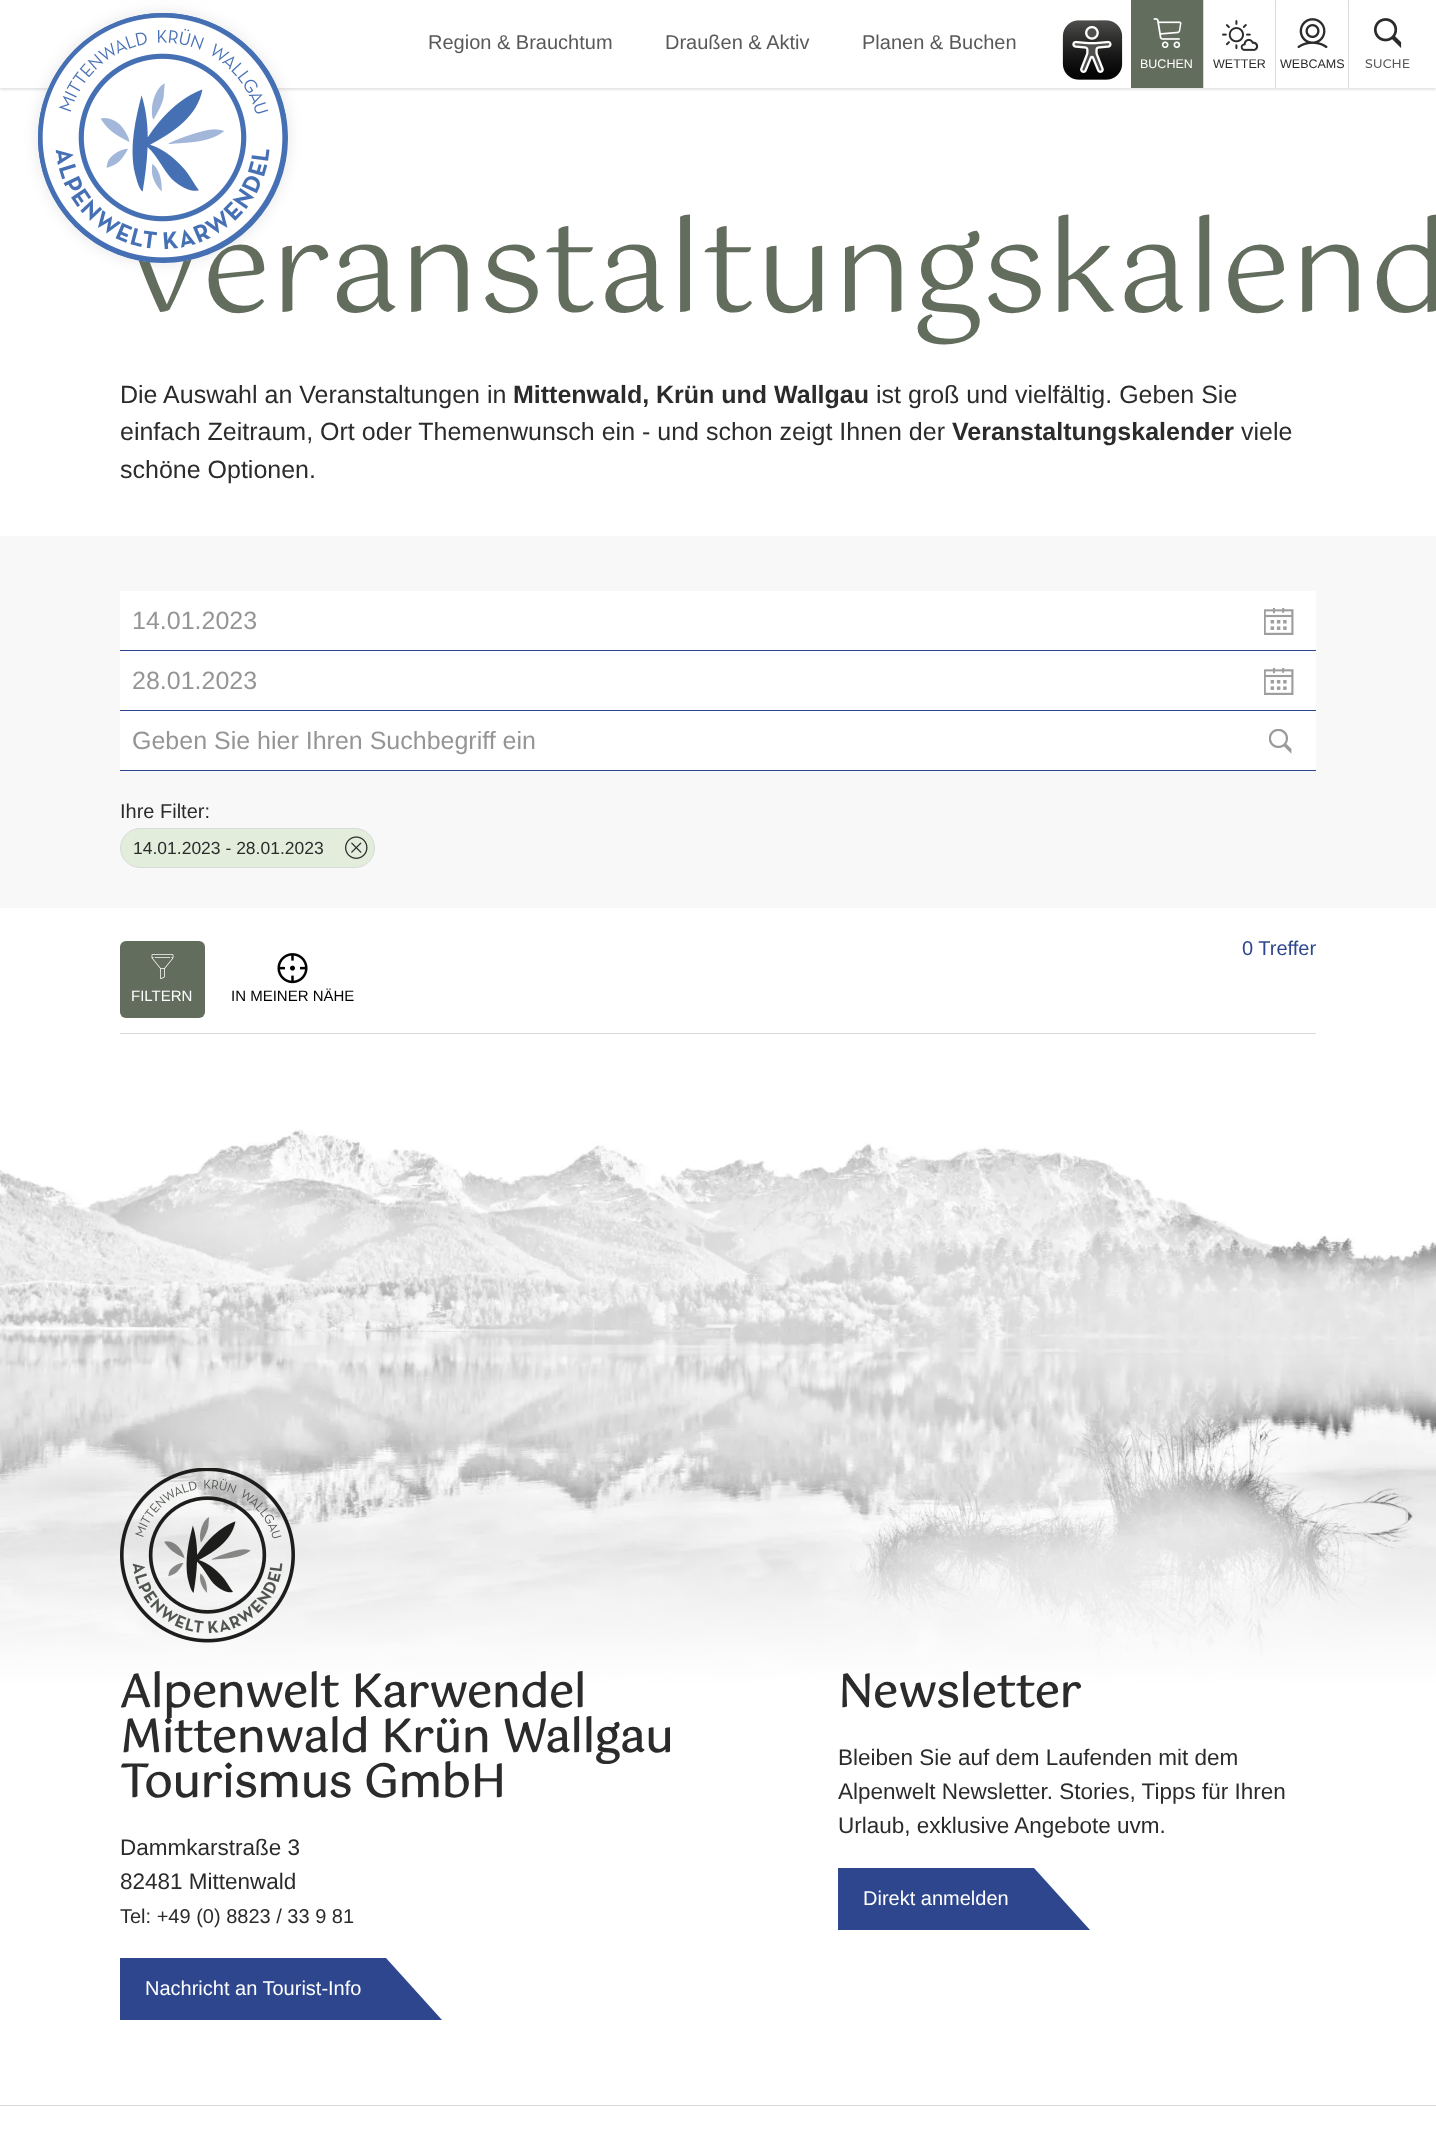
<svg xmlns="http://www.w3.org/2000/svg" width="1436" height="2131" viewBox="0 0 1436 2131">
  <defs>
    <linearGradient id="g1" gradientUnits="userSpaceOnUse" x1="718" y1="1446" x2="718" y2="1685"><stop offset="0" stop-color="#fff" stop-opacity="0"/><stop offset="1" stop-color="#fff"/></linearGradient>
  </defs>
  <rect width="100%" height="100%" fill="#fff"/>
  <path d="M0 3h1436v87H0z" fill="#0000001a" filter="blur(1px)"/>
  <path d="M0 2h1436v86H0z" fill="#fff"/>
  <rect x="38" y="13" width="250" height="250" rx="125" fill="#0000001a" filter="blur(7.5px)"/>
  <image x="1062" y="20" width="61" height="60" href="img/2.png"/>
  <path d="M1131 0h72v88H1131z" fill="#636d5d"/>
  <path d="M1203 0h1v88H1203z" fill="#d9d9d9"/>
  <image x="1153" y="18" width="29" height="31" href="img/3.png"/>
  <path d="M1275 0h1v88H1275z" fill="#d9d9d9"/>
  <image x="1222" y="20" width="37" height="31" href="img/4.png"/>
  <path d="M1348 0h1v88H1348z" fill="#d9d9d9"/>
  <image x="1297" y="18" width="31" height="31" href="img/5.png"/>
  <image x="1373" y="18" width="29" height="30" href="img/6.png"/>
  <path d="M0 536h1436v372H0z" fill="#f8f8f8"/>
  <path d="M120 591h1196v59H120z" fill="#fff"/>
  <image x="1264" y="608" width="30" height="27" href="img/7.png"/>
  <path d="M120 650h1196v1H120z" fill="#2d468e"/>
  <path d="M120 651h1196v59H120z" fill="#fff"/>
  <image x="1264" y="668" width="30" height="27" href="img/7.png"/>
  <path d="M120 710h1196v1H120z" fill="#2d468e"/>
  <path d="M120 711h1196v59H120z" fill="#fff"/>
  <image x="1269" y="729" width="23" height="25" href="img/8.png"/>
  <path d="M120 770h1196v1H120z" fill="#2d468e"/>
  <rect x="120.5" y="828.5" width="254" height="39" rx="19.5" fill="#e2eedb" stroke="#d9d9d9"/>
  <image x="345" y="836" width="23" height="23" href="img/9.png"/>
  <path d="M120 1033h1196v1H120z" fill="#d9d9d9"/>
  <rect x="120" y="941" width="85" height="77" rx="6" fill="#636d5d"/>
  <image x="151" y="954" width="23" height="25" href="img/10.png"/>
  <image x="277" y="953" width="31" height="31" href="img/11.png"/>
  <image x="0" y="1129" width="1436" height="555" href="img/12.png"/>
  <path d="M0 1453h1436v231H0z" fill="url(#g1)"/>
  <path d="M0 2105h1436v1H0z" fill="#d9d9d9"/>
  <image x="120" y="1468" width="175" height="175" href="img/13.png"/>
  <path d="M120 1958h266v62H120z" fill="#2d468e"/>
  <path d="M442 2020H386V1958Z" fill="#2d468e"/>
  <path d="M838 1868h196v62H838z" fill="#2d468e"/>
  <path d="M1090 1930H1034V1868Z" fill="#2d468e"/>
  <g font-family="Liberation Sans" font-size="20" fill="#595959">
    <text x="428" y="49">Region &amp; Brauchtum</text>
    <text x="665" y="49">Draußen &amp; Aktiv</text>
    <text x="862" y="49">Planen &amp; Buchen</text>
  </g>
  <text x="1140" y="68" font-family="Liberation Sans" font-size="12.5" fill="#fff">BUCHEN</text>
  <g font-family="Liberation Sans" font-size="12.5" fill="#2b2b2b">
    <text x="1213" y="68">WETTER</text>
    <text x="1280" y="68">WEBCAMS</text>
  </g>
  <text x="1365" y="68" font-family="Montserrat" font-size="12.5" font-weight="500" fill="#595959">SUCHE</text>
  <text x="120" y="311" font-family="Gotu" font-size="125" fill="#636d5d">Veranstaltungskalend</text>
  <circle cx="163" cy="138" r="125" fill="#fff"/>
  <image x="38" y="13" width="250" height="250" href="img/1.png"/>
  <circle cx="163" cy="138" r="123.5" fill="none" stroke="#4670b4" stroke-width="3"/>
  <text x="120" y="403" font-family="Liberation Sans" font-size="25" fill="#2b2b2b">Die Auswahl an Veranstaltungen in</text>
  <text x="513" y="403" font-family="Liberation Sans" font-size="25" font-weight="bold" fill="#2b2b2b">Mittenwald, Krün und Wallgau</text>
  <g font-family="Liberation Sans" font-size="25" fill="#2b2b2b">
    <text x="876" y="403">ist groß und vielfältig. Geben Sie</text>
    <text x="120" y="440">einfach Zeitraum, Ort oder Themenwunsch ein - und schon zeigt Ihnen der</text>
  </g>
  <text x="952" y="440" font-family="Liberation Sans" font-size="25" font-weight="bold" fill="#2b2b2b">Veranstaltungskalender</text>
  <g font-family="Liberation Sans" font-size="25" fill="#2b2b2b">
    <text x="1241" y="440">viele</text>
    <text x="120" y="478">schöne Optionen.</text>
  </g>
  <g font-family="Liberation Sans" font-size="25" fill="#959595">
    <text x="132" y="629">14.01.2023</text>
    <text x="132" y="689">28.01.2023</text>
    <text x="132" y="749">Geben Sie hier Ihren Suchbegriff ein</text>
  </g>
  <text x="120" y="818" font-family="Liberation Sans" font-size="20" fill="#2b2b2b">Ihre Filter:</text>
  <text x="133" y="854" font-family="Liberation Sans" font-size="17.5" fill="#2b2b2b">14.01.2023 - 28.01.2023</text>
  <text x="1242" y="955" font-family="Liberation Sans" font-size="20" fill="#2d468e">0 Treffer</text>
  <text x="131" y="1001" font-family="Liberation Sans" font-size="15" fill="#fff">FILTERN</text>
  <text x="231" y="1001" font-family="Liberation Sans" font-size="15" fill="#000">IN MEINER NÄHE</text>
  <g font-family="Gotu" font-size="45" font-weight="bold" fill="#2b2b2b">
    <text x="120" y="1707">Alpenwelt Karwendel</text>
    <text x="120" y="1752">Mittenwald Krün Wallgau</text>
    <text x="120" y="1797">Tourismus GmbH</text>
  </g>
  <g font-family="Liberation Sans" font-size="22.5" fill="#2b2b2b">
    <text x="120" y="1855">Dammkarstraße 3</text>
    <text x="120" y="1889">82481 Mittenwald</text>
  </g>
  <text x="120" y="1923" font-family="Liberation Sans" font-size="20" fill="#2b2b2b">Tel: +49 (0) 8823 / 33 9 81</text>
  <text x="145" y="1995" font-family="Liberation Sans" font-size="20" fill="#fff">Nachricht an Tourist-Info</text>
  <text x="838" y="1707" font-family="Gotu" font-size="45" font-weight="bold" fill="#2b2b2b">Newsletter</text>
  <g font-family="Liberation Sans" font-size="22.5" fill="#2b2b2b">
    <text x="838" y="1765">Bleiben Sie auf dem Laufenden mit dem</text>
    <text x="838" y="1799">Alpenwelt Newsletter. Stories, Tipps für Ihren</text>
    <text x="838" y="1833">Urlaub, exklusive Angebote uvm.</text>
  </g>
  <text x="863" y="1905" font-family="Liberation Sans" font-size="20" fill="#fff">Direkt anmelden</text>
</svg>
